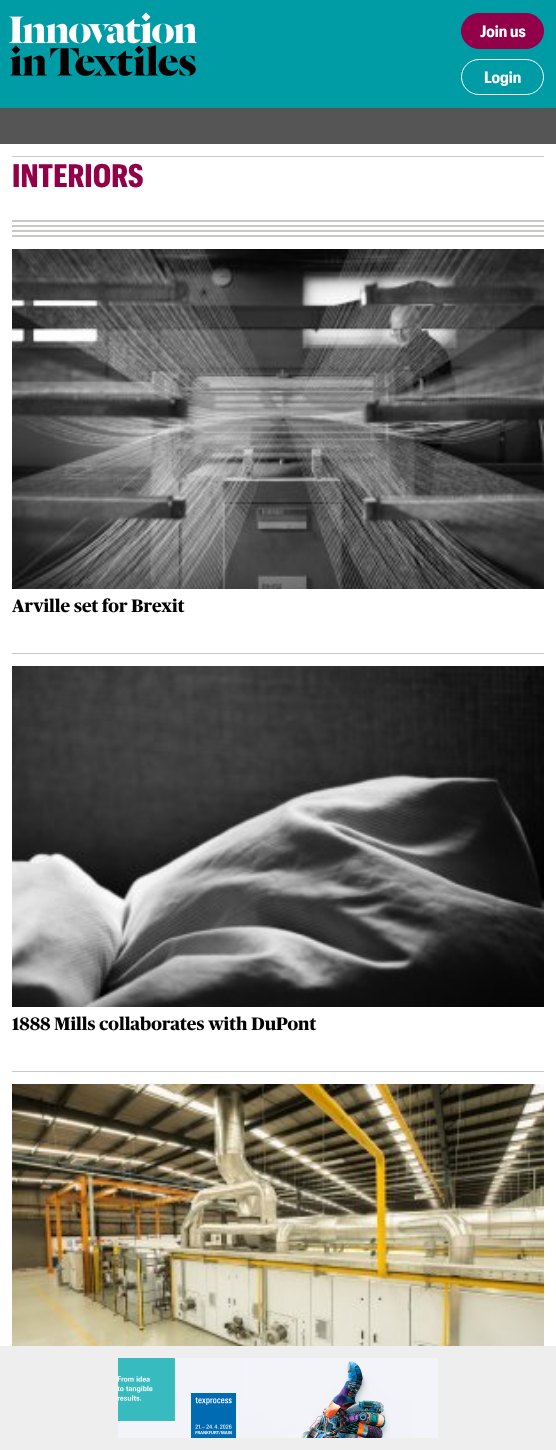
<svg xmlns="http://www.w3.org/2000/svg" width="556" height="1450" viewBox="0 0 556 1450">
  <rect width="100%" height="100%" fill="#fff"/>
  <path d="M0 0h556v108H0z" fill="#009ca6"/>
  <image x="9" y="12" width="188" height="64" href="img/1.png"/>
  <rect x="461.5" y="13.5" width="82" height="35" rx="17.5" fill="#910048" stroke="#910048"/>
  <rect x="461.5" y="59.5" width="82" height="35" rx="17.5" fill="none" stroke="#fff"/>
  <path d="M0 1346h556v104H0z" fill="#eee"/>
  <image x="118" y="1358" width="320" height="80" href="img/2.png"/>
  <path d="M0 108h556v36H0z" fill="#555"/>
  <path d="M12 156h532v1H12z" fill="#c8c9c7"/>
  <image x="12" y="220" width="532" height="17" href="img/3.png"/>
  <path d="M12 653h532v1H12z" fill="#c8c9c7"/>
  <image x="12" y="249" width="532" height="340" href="img/4.png"/>
  <path d="M12 1071h532v1H12z" fill="#c8c9c7"/>
  <image x="12" y="666" width="532" height="341" href="img/5.png"/>
  <image x="12" y="1084" width="532" height="262" href="img/6.png"/>
  <g font-family="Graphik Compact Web" font-size="16" font-weight="bold" fill="#fff">
    <text x="480" y="37">Join us</text>
    <text x="484" y="83">Login</text>
  </g>
  <text x="12" y="187" font-family="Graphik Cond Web" font-size="32" font-weight="bold" fill="#910048">INTERIORS</text>
  <g font-family="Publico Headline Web" font-size="18" font-weight="800" fill="#000">
    <text x="12" y="612">Arville set for Brexit</text>
    <text x="12" y="1030">1888 Mills collaborates with DuPont</text>
  </g>
</svg>
